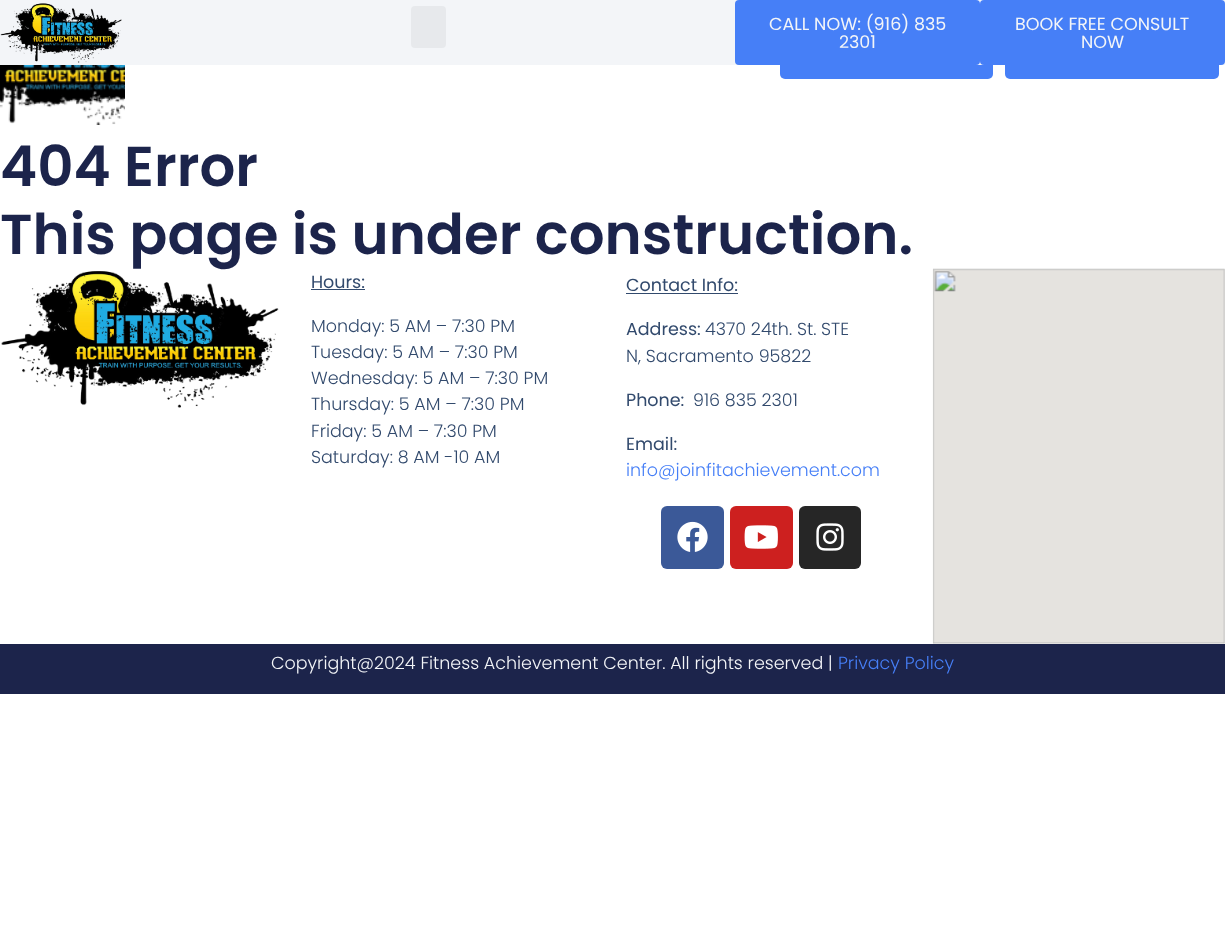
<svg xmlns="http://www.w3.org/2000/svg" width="1225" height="934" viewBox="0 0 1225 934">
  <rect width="100%" height="100%" fill="#fff"/>
  <rect x="780" y="6" width="213" height="73" rx="5" fill="#467ff7"/>
  <rect x="1005" y="6" width="214" height="73" rx="5" fill="#467ff7"/>
  <path d="M0 0h1225v65H0z" fill="#f3f5f8"/>
  <image x="0" y="3" width="122" height="60" href="img/1.png"/>
  <rect x="411" y="6" width="35" height="42" rx="4" fill="#e7e9ec"/>
  <rect x="735" width="245" height="65" rx="4" fill="#467ff7"/>
  <rect x="980" width="245" height="65" rx="4" fill="#467ff7"/>
  <image x="0" y="65" width="125" height="60" href="img/2.png"/>
  <image x="1" y="271" width="278" height="137" href="img/3.png"/>
  <path d="M311 289h54v1H311z" fill="#324a6d"/>
  <path d="M626 293h112v1H626z" fill="#324a6d"/>
  <rect x="661" y="506" width="63" height="63" rx="6" fill="#3b5998"/>
  <image x="677" y="521" width="31" height="31" href="img/4.png"/>
  <rect x="730" y="506" width="63" height="63" rx="6" fill="#cd201f"/>
  <image x="744" y="525" width="34" height="24" href="img/5.png"/>
  <rect x="799" y="506" width="62" height="63" rx="6" fill="#262626"/>
  <image x="816" y="523" width="28" height="28" href="img/6.png"/>
  <image x="932" y="268" width="293" height="376" href="img/7.png"/>
  <path d="M0 644h1225v50H0z" fill="#1c244b"/>
  <g font-family="Poppins" font-size="17.5" fill="#f3f5f8">
    <text x="769" y="30">CALL NOW: (916) 835</text>
    <text x="839" y="48">2301</text>
    <text x="1015" y="30">BOOK FREE CONSULT</text>
    <text x="1081" y="48">NOW</text>
  </g>
  <g font-family="Poppins" font-size="56.25" font-weight="600" fill="#1c244b">
    <text x="0" y="186">404 Error</text>
    <text x="0" y="254">This page is under construction.</text>
  </g>
  <text x="311" y="288" font-family="Poppins" font-size="17.5" fill="#324a6d">Hours:</text>
  <g font-family="Poppins" font-size="17.5" font-weight="300" fill="#324a6d">
    <text x="311" y="332">Monday: 5 AM – 7:30 PM</text>
    <text x="311" y="358">Tuesday: 5 AM – 7:30 PM</text>
    <text x="311" y="384">Wednesday: 5 AM – 7:30 PM</text>
    <text x="311" y="410">Thursday: 5 AM – 7:30 PM</text>
    <text x="311" y="437">Friday: 5 AM – 7:30 PM</text>
    <text x="311" y="463">Saturday: 8 AM -10 AM</text>
  </g>
  <g font-family="Poppins" font-size="17.5" fill="#324a6d">
    <text x="626" y="291">Contact Info:</text>
    <text x="626" y="335">Address:</text>
  </g>
  <g font-family="Poppins" font-size="17.5" font-weight="300" fill="#324a6d">
    <text x="705" y="335">4370 24th. St. STE</text>
    <text x="626" y="362">N, Sacramento 95822</text>
  </g>
  <text x="626" y="406" font-family="Poppins" font-size="17.5" fill="#324a6d">Phone:</text>
  <text x="693" y="406" font-family="Poppins" font-size="17.5" font-weight="300" fill="#324a6d">916 835 2301</text>
  <text x="626" y="450" font-family="Poppins" font-size="17.5" fill="#324a6d">Email:</text>
  <text x="626" y="476" font-family="Poppins" font-size="17.5" font-weight="300" fill="#467ff7">info@joinfitachievement.com</text>
  <text x="271" y="669" font-family="Poppins" font-size="17.5" font-weight="300" fill="#f3f5f8">Copyright@2024 Fitness Achievement Center. All rights reserved |</text>
  <text x="838" y="669" font-family="Poppins" font-size="17.5" font-weight="300" fill="#467ff7">Privacy Policy</text>
</svg>
